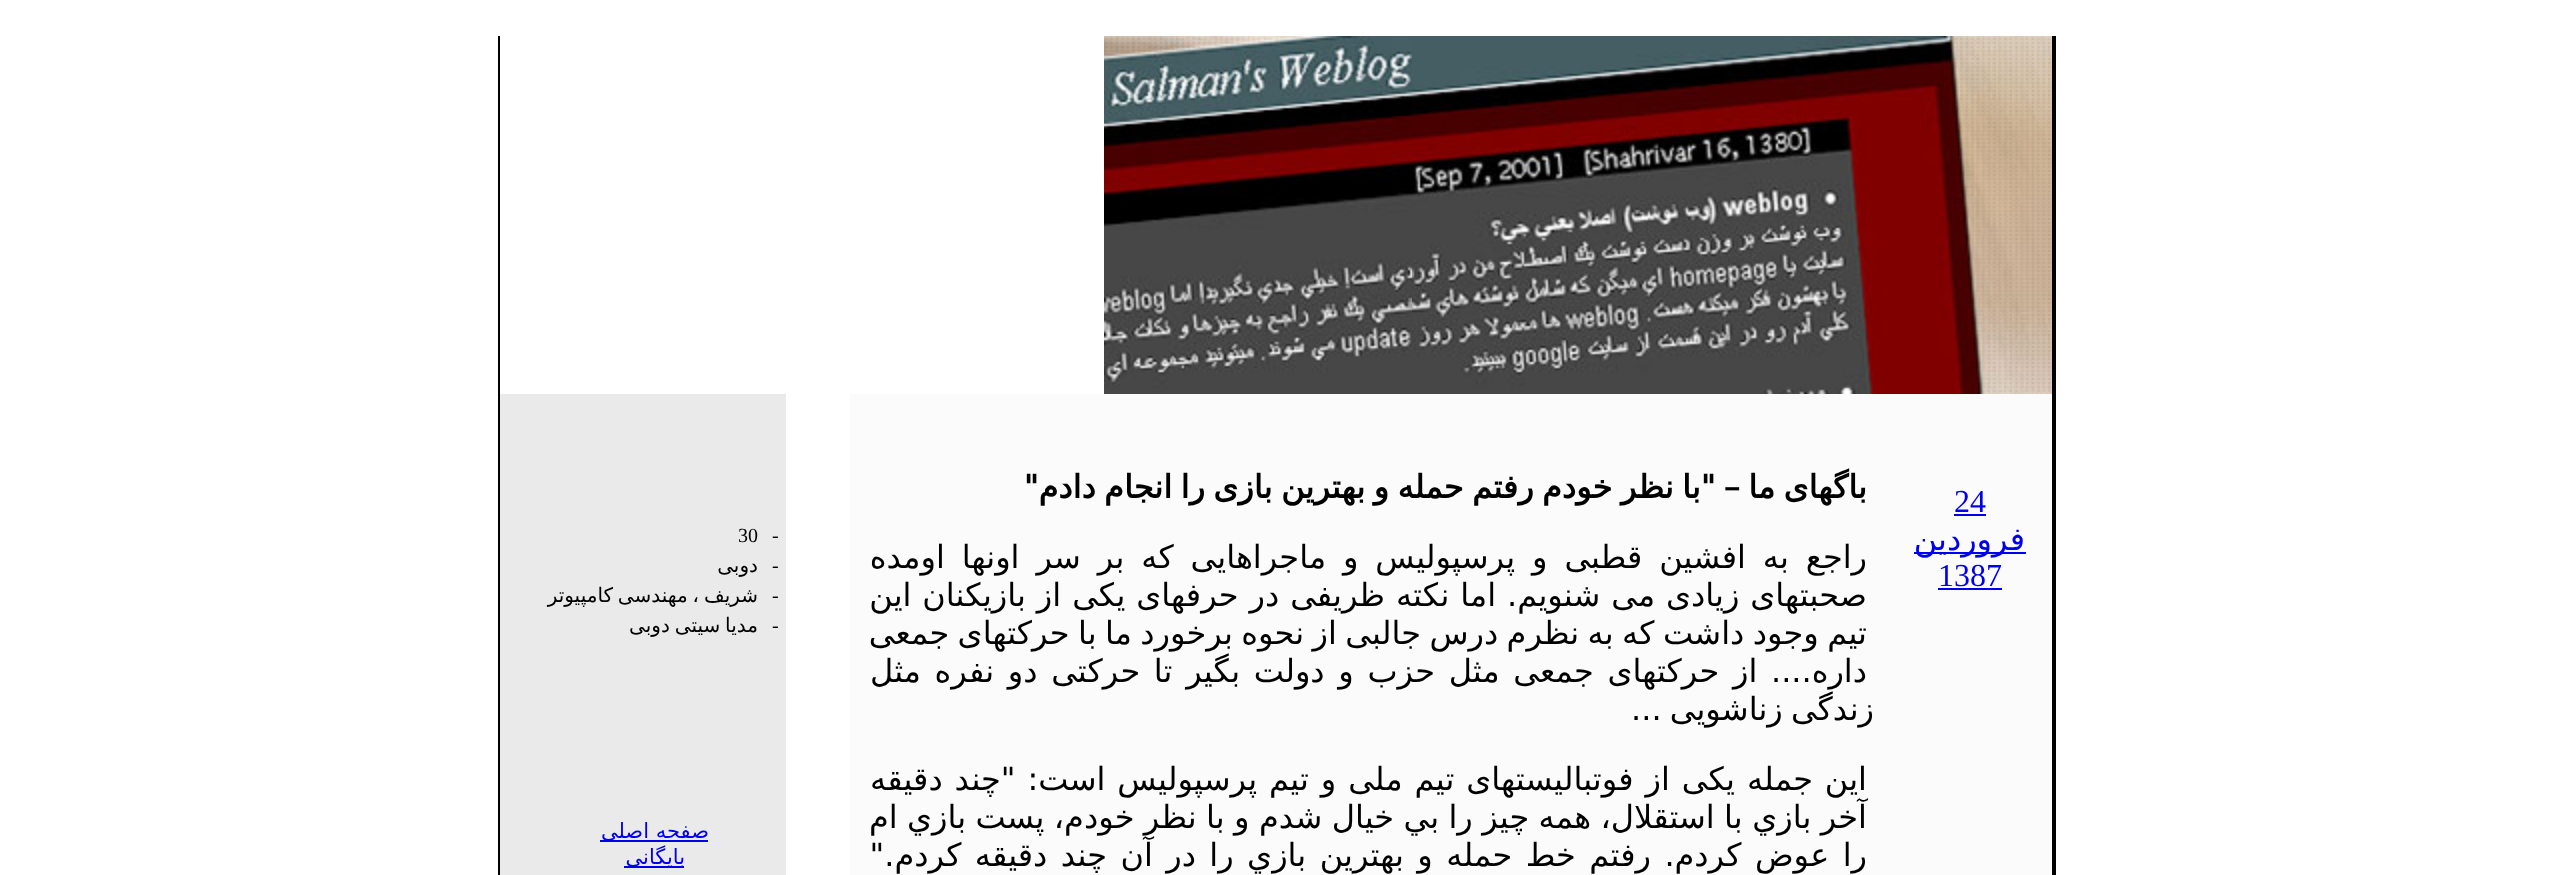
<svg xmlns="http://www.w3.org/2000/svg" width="2552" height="875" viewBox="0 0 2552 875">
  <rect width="100%" height="100%" fill="#fff"/>
  <path d="M2052 36h4v839H2052z" fill="#000"/>
  <path d="M498 36h2v839H498z" fill="#000"/>
  <image x="1412" y="36" width="640" height="358" href="img/1.png"/>
  <image x="1104" y="36" width="308" height="358" href="img/2.png"/>
  <path d="M850 394h1202v481H850z" fill="#fbfbfb"/>
  <path d="M1954 514h32v2H1954z" fill="#00e"/>
  <path d="M1914 552h112v2H1914z" fill="#00e"/>
  <path d="M1938 588h64v2H1938z" fill="#00e"/>
  <path d="M500 394h286v481H500z" fill="#eaeaea"/>
  <path d="M600 840h108v2H600z" fill="#00e"/>
  <path d="M624 866h60v2H624z" fill="#00e"/>
  <text x="1954" y="512" font-family="Liberation Serif" font-size="32" fill="#00e">24</text>
  <text x="2025" y="550" font-family="DejaVu Sans" font-size="32" direction="rtl" fill="#00e">فروردین</text>
  <text x="1938" y="586" font-family="Liberation Serif" font-size="32" fill="#00e">1387</text>
  <text x="1867" y="498" word-spacing="-1.75" font-family="DejaVu Sans" font-size="32" font-weight="bold" direction="rtl" fill="#000">باگهای ما – "با نظر خودم رفتم حمله و بهترين بازی را انجام دادم"</text>
  <g font-family="DejaVu Sans" font-size="32" direction="rtl" fill="#000">
    <text x="1867" y="568" word-spacing="6.75">راجع به افشین قطبی و پرسپولیس و ماجراهایی که بر سر اونها اومده</text>
    <text x="1867" y="606" word-spacing="0.75">صحبتهای زیادی می شنویم. اما نکته ظریفی در حرفهای یکی از بازیکنان این</text>
    <text x="1867" y="644" word-spacing="-1.75">تیم وجود داشت که به نظرم درس جالبی از نحوه برخورد ما با حرکتهای جمعی</text>
    <text x="1867" y="682" word-spacing="3.5">داره.... از حرکتهای جمعی مثل حزب و دولت بگیر تا حرکتی دو نفره مثل</text>
    <text x="1874" y="720" word-spacing="-2">زندگی زناشویی ...</text>
    <text x="1867" y="790" word-spacing="1.75">این جمله یکی از فوتبالیستهای تیم ملی و تیم پرسپولیس است: "چند دقيقه</text>
    <text x="1867" y="828" word-spacing="-0.8">آخر بازي با استقلال، همه چيز را بي خيال شدم و با نظر خودم، پست بازي ام</text>
    <text x="1867" y="866" word-spacing="3.25">را عوض کردم. رفتم خط حمله و بهترين بازي را در آن چند دقيقه کردم."</text>
  </g>
  <g font-family="Liberation Serif" font-size="20" fill="#000">
    <text x="772" y="542">-</text>
    <text x="738" y="542">30</text>
    <text x="772" y="572">-</text>
  </g>
  <text x="758" y="572" font-family="DejaVu Sans" font-size="20" direction="rtl" fill="#000">دوبی</text>
  <text x="772" y="602" font-family="Liberation Serif" font-size="20" fill="#000">-</text>
  <text x="758" y="602" word-spacing="-1.5" font-family="DejaVu Sans" font-size="20" direction="rtl" fill="#000">شريف ، مهندسی کامپيوتر</text>
  <text x="772" y="632" font-family="Liberation Serif" font-size="20" fill="#000">-</text>
  <text x="758" y="632" word-spacing="-1.5" font-family="DejaVu Sans" font-size="20" direction="rtl" fill="#000">مدیا سیتی دوبی</text>
  <g font-family="DejaVu Sans" font-size="21" direction="rtl" fill="#00e">
    <text x="709" y="838">صفحه</text>
    <text x="649" y="838">اصلی</text>
    <text x="685" y="864">بايگانی</text>
  </g>
</svg>
